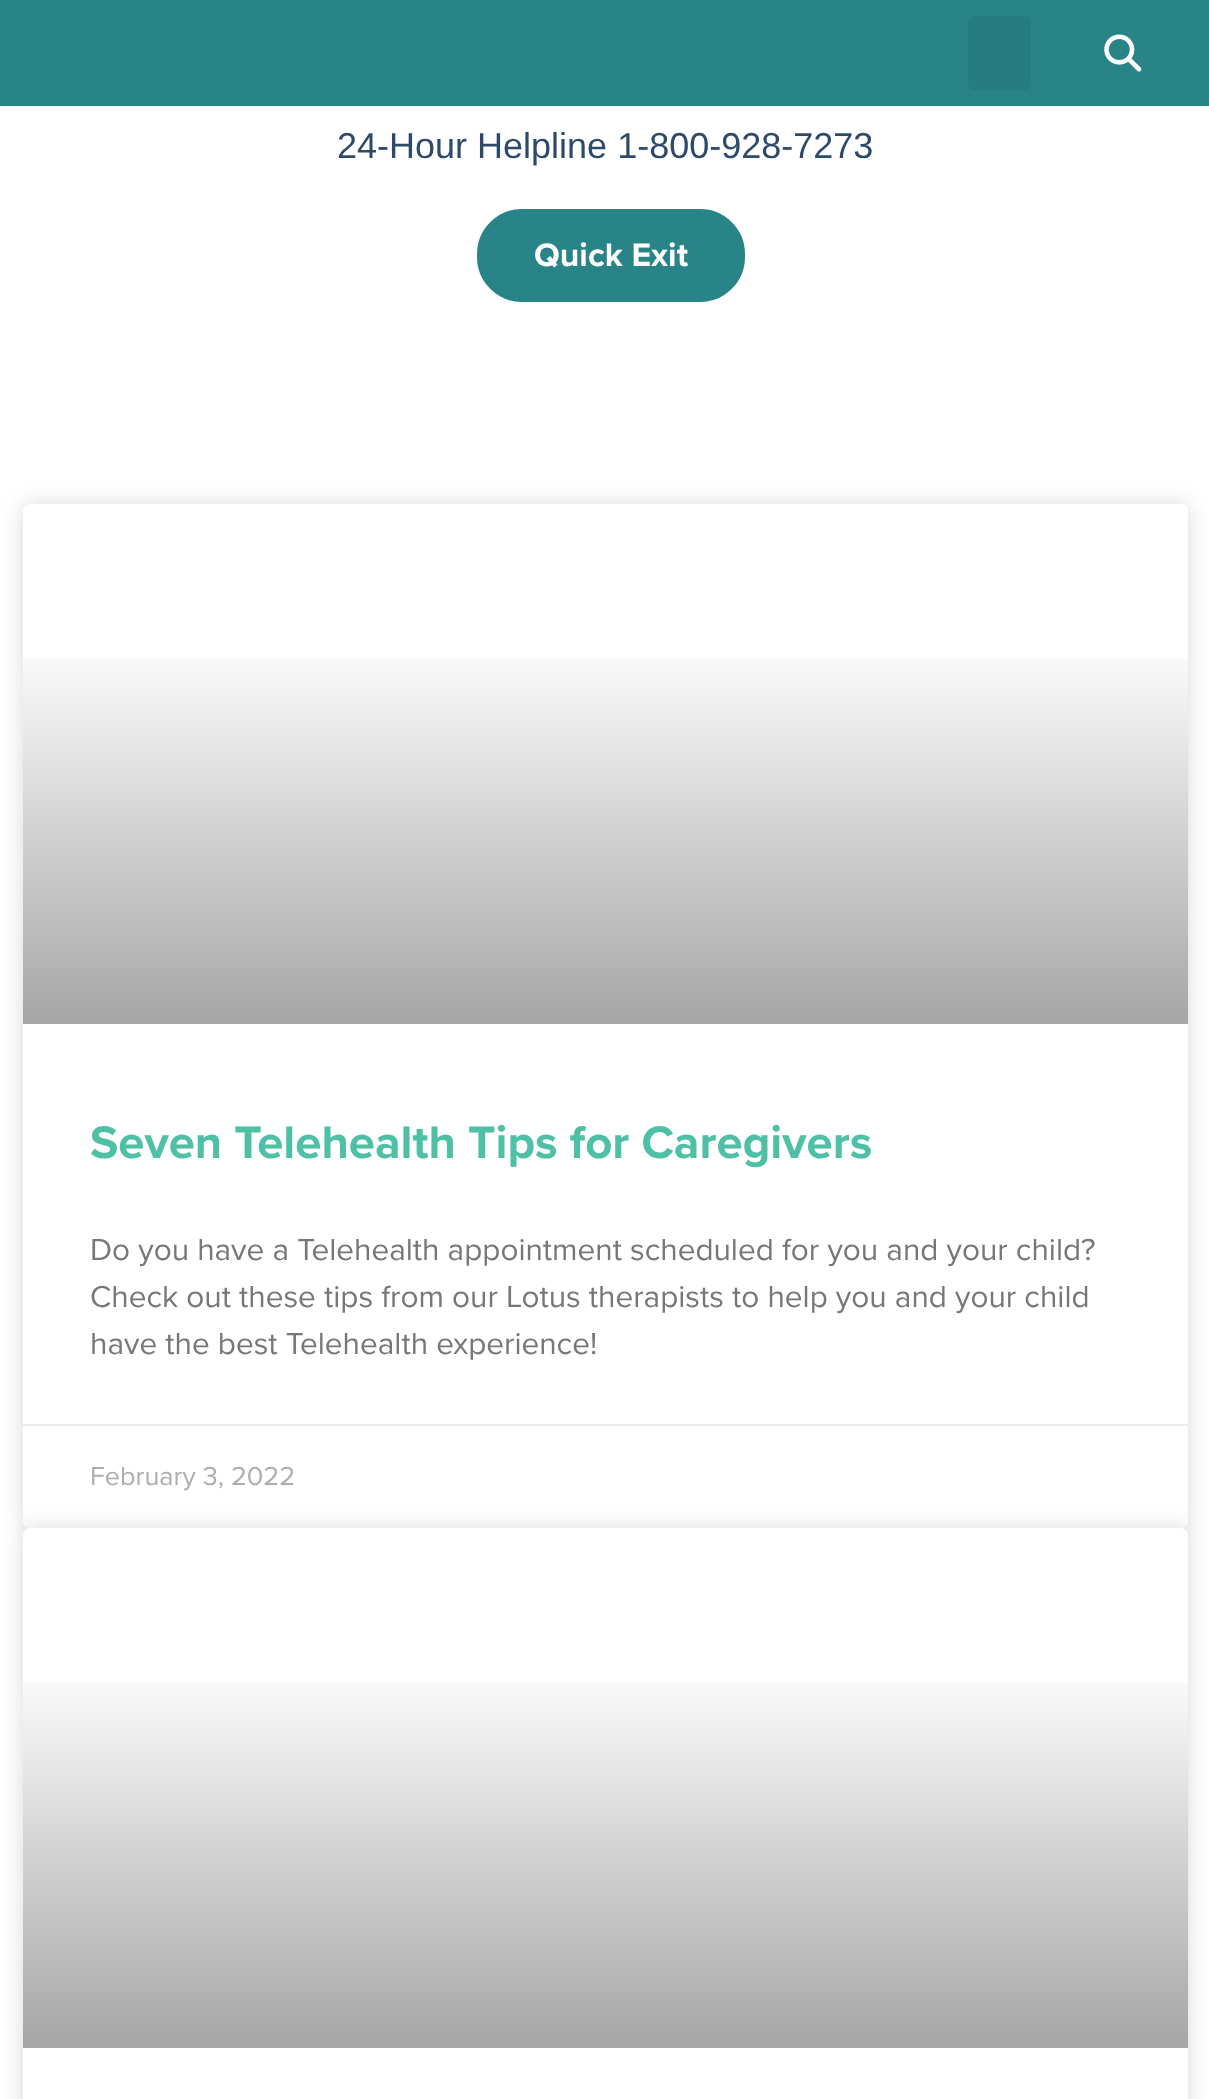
<svg xmlns="http://www.w3.org/2000/svg" width="1209" height="2099" viewBox="0 0 1209 2099">
  <defs>
    <linearGradient id="g1" gradientUnits="userSpaceOnUse" x1="605" y1="1024" x2="605" y2="504"><stop offset="0" stop-color="#000" stop-opacity="0.35"/><stop offset="0.75" stop-color="#000" stop-opacity="0"/></linearGradient>
    <linearGradient id="g2" gradientUnits="userSpaceOnUse" x1="605" y1="2048" x2="605" y2="1528"><stop offset="0" stop-color="#000" stop-opacity="0.35"/><stop offset="0.75" stop-color="#000" stop-opacity="0"/></linearGradient>
  </defs>
  <rect width="100%" height="100%" fill="#fff"/>
  <path d="M0 0h1209v106H0z" fill="#288487"/>
  <rect x="968" y="16" width="63" height="74" rx="7" fill="#267d80"/>
  <image x="1104" y="34" width="38" height="38" href="img/1.png"/>
  <rect x="478" y="210" width="266" height="91" rx="44" fill="#288487" stroke="#288487" stroke-width="2"/>
  <rect x="23" y="504" width="1165" height="1024" rx="7" fill="#00000026" filter="blur(11px)"/>
  <rect x="23" y="504" width="1165" height="1024" rx="7" fill="#fff"/>
  <path d="M23 658h1165v366H23z" fill="url(#g1)"/>
  <path d="M23 1424h1165v2H23z" fill="#eaeaea"/>
  <rect x="23" y="1528" width="1165" height="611" rx="7" fill="#00000026" filter="blur(11px)"/>
  <rect x="23" y="1528" width="1165" height="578" rx="7" fill="#fff"/>
  <path d="M23 1682h1165v366H23z" fill="url(#g2)"/>
  <text x="337" y="158" font-family="Liberation Sans" font-size="36" fill="#2e4a6b">24-Hour Helpline 1-800-928-7273</text>
  <text x="534" y="266" font-family="Proxima Nova" font-size="33.75" font-weight="bold" fill="#fff">Quick Exit</text>
  <text x="90" y="1158" font-family="Proxima Nova" font-size="47.25" font-weight="bold" fill="#4ec0a5">Seven Telehealth Tips for Caregivers</text>
  <g font-family="Proxima Nova" font-size="31.5" fill="#777">
    <text x="90" y="1260">Do you have a Telehealth appointment scheduled for you and your child?</text>
    <text x="90" y="1307">Check out these tips from our Lotus therapists to help you and your child</text>
    <text x="90" y="1354">have the best Telehealth experience!</text>
  </g>
  <text x="90" y="1485" font-family="Proxima Nova" font-size="27" fill="#adadad">February 3, 2022</text>
</svg>
